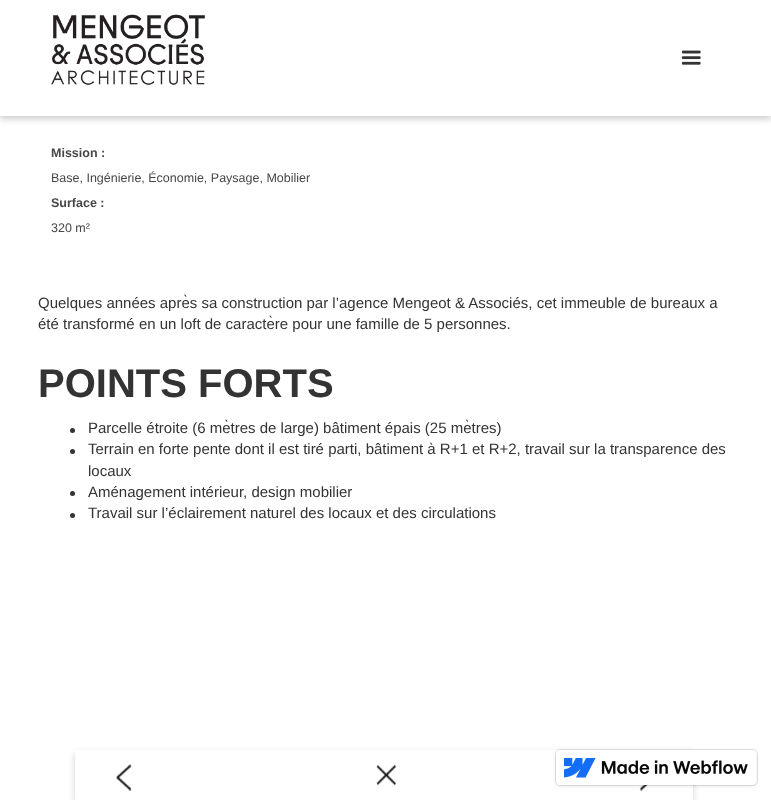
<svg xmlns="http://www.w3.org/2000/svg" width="771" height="800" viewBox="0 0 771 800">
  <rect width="100%" height="100%" fill="#fff"/>
  <path d="M0 3h771v116H0z" fill="#00000033" filter="blur(3px)"/>
  <path d="M0 0h771v116H0z" fill="#fff"/>
  <image x="51" y="14" width="154" height="71" href="img/1.png"/>
  <image x="681" y="50" width="20" height="15" href="img/2.png"/>
  <circle cx="72.5" cy="430.5" r="2.5" fill="#333"/>
  <circle cx="72.5" cy="451.5" r="2.5" fill="#333"/>
  <circle cx="72.5" cy="493.5" r="2.5" fill="#333"/>
  <circle cx="72.5" cy="515.5" r="2.5" fill="#333"/>
  <path d="M75 753h618v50H75z" fill="#1a1a1a33" filter="blur(3px)"/>
  <path d="M75 750h618v50H75z" fill="#fff"/>
  <image x="116" y="764" width="16" height="27" href="img/3.png"/>
  <image x="376" y="764" width="21" height="22" href="img/4.png"/>
  <image x="639" y="785" width="9" height="6" href="img/5.png"/>
  <rect x="556" y="751" width="200" height="35" rx="4" fill="#0000001a" filter="blur(2px)"/>
  <rect x="555.5" y="749.5" width="202" height="36" rx="4.5" fill="none" stroke="#0000001a"/>
  <rect x="556" y="750" width="200" height="35" rx="4" fill="#fff"/>
  <image x="564" y="758" width="32" height="20" href="img/6.png"/>
  <image x="601" y="760" width="147" height="14" href="img/7.png"/>
  <text x="51" y="157" font-family="Liberation Sans" font-size="12.5" font-weight="bold" fill="#474747">Mission :</text>
  <text x="51" y="182" font-family="Liberation Sans" font-size="12.5" fill="#474747">Base, Ingénierie, Économie, Paysage, Mobilier</text>
  <text x="51" y="207" font-family="Liberation Sans" font-size="12.5" font-weight="bold" fill="#474747">Surface :</text>
  <text x="51" y="232" font-family="Liberation Sans" font-size="12.5" fill="#474747">320 m²</text>
  <g font-family="Liberation Sans" font-size="15" fill="#333">
    <text x="38" y="308">Quelques années après sa construction par l’agence Mengeot &amp; Associés, cet immeuble de bureaux a</text>
    <text x="38" y="329">été transformé en un loft de caractère pour une famille de 5 personnes.</text>
  </g>
  <text x="38" y="397" font-family="Liberation Sans" font-size="40" font-weight="bold" fill="#333">POINTS FORTS</text>
  <g font-family="Liberation Sans" font-size="15" fill="#333">
    <text x="88" y="433">Parcelle étroite (6 mètres de large) bâtiment épais (25 mètres)</text>
    <text x="88" y="454">Terrain en forte pente dont il est tiré parti, bâtiment à R+1 et R+2, travail sur la transparence des</text>
    <text x="88" y="476">locaux</text>
    <text x="88" y="497">Aménagement intérieur, design mobilier</text>
    <text x="88" y="518">Travail sur l’éclairement naturel des locaux et des circulations</text>
  </g>
</svg>
